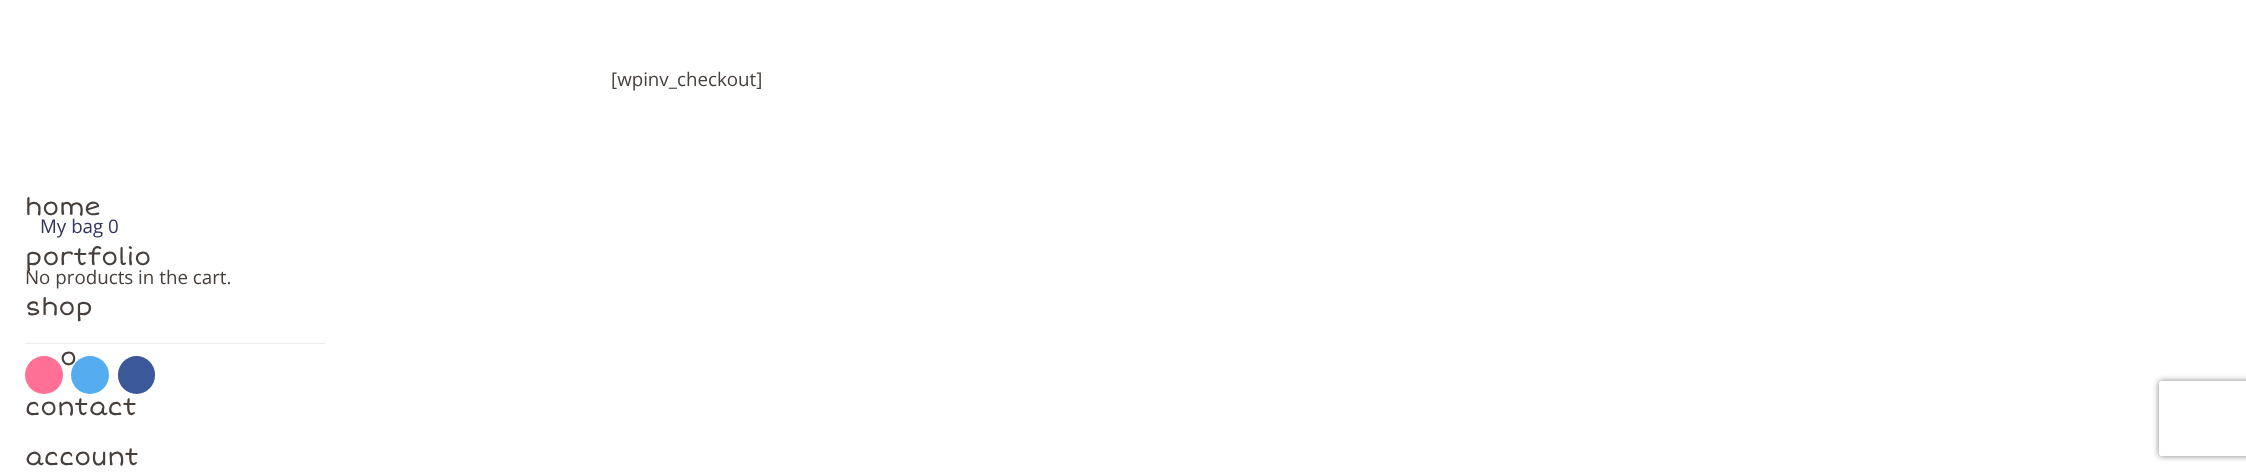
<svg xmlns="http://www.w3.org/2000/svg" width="2246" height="473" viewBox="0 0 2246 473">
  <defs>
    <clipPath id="clip1"><path d="M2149 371H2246V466H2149ZM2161.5 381H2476.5C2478 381 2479 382 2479 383.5V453.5C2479 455 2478 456 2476.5 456H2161.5C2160 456 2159 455 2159 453.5V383.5C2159 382 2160 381 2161.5 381Z" clip-rule="evenodd"/></clipPath>
  </defs>
  <rect width="100%" height="100%" fill="#fff"/>
  <path d="M25 343h300v1H25z" fill="#ececec"/>
  <rect x="118" y="356" width="37" height="38" rx="18.5" fill="#3b5998"/>
  <g clip-path="url(#clip1)">
    <rect x="2159" y="381" width="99" height="75" rx="2.5" fill="#808080" filter="blur(3px)"/>
  </g>
  <text x="611" y="86" font-family="Open Sans" font-size="18.75" fill="#463f3c">[wpinv_checkout]</text>
  <g font-family="Short Stack" font-size="25" fill="#463f3c">
    <text x="25" y="215">home</text>
    <text x="25" y="265">portfolio</text>
    <text x="25" y="315">shop</text>
    <text x="60" y="365">o</text>
    <text x="25" y="415">contact</text>
    <text x="25" y="465">account</text>
  </g>
  <text x="40" y="233" font-family="Open Sans" font-size="18.75" fill="#32355d">My bag 0</text>
  <text x="25" y="284" font-family="Open Sans" font-size="18.75" fill="#463f3c">No products in the cart.</text>
  <circle cx="44" cy="375" r="19" fill="#ff6f96"/>
  <circle cx="90" cy="375" r="19" fill="#55acee"/>
</svg>
